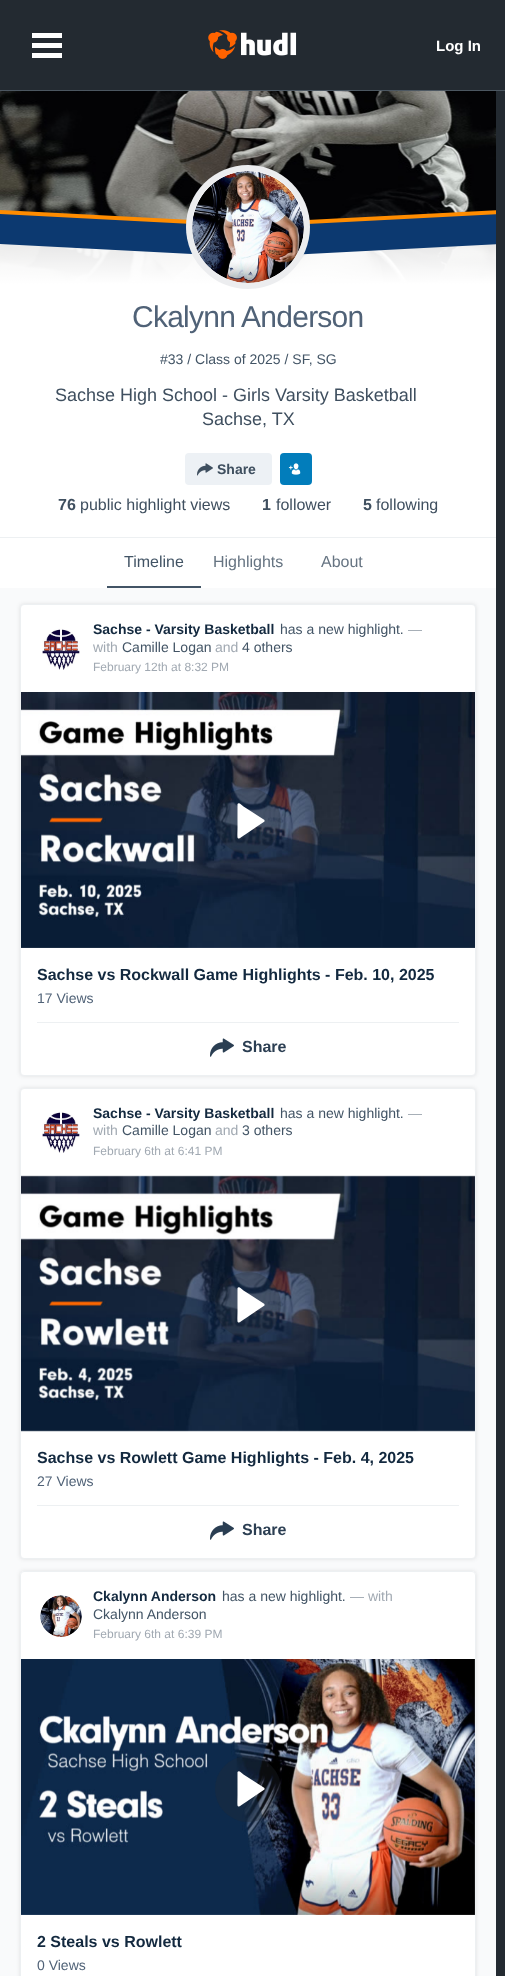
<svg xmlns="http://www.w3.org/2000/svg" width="505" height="1976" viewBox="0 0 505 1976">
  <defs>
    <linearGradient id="g1" gradientUnits="userSpaceOnUse" x1="248" y1="221" x2="248" y2="537"><stop offset="0" stop-color="#fff" stop-opacity="0.85"/><stop offset="0.2" stop-color="#fff"/></linearGradient>
    <clipPath id="clip1"><path d="M0 203h496v50H0z"/></clipPath>
    <clipPath id="clip2"><path d="M0 207h496v50H0z"/></clipPath>
  </defs>
  <rect width="100%" height="100%" fill="#232a31"/>
  <path d="M0 90h505v1H0z" fill="#4c5761"/>
  <path d="M32 33h30v5H32z" fill="#fff"/>
  <path d="M32 43h30v5H32z" fill="#fff"/>
  <path d="M32 53h30v5H32z" fill="#fff"/>
  <image x="208" y="30" width="89" height="29" href="img/1.png"/>
  <image x="0" y="91" width="496" height="191" href="img/2.png"/>
  <path d="M0 244h496v293H0z" fill="url(#g1)"/>
  <path d="M0 537h496v1H0z" fill="#edf0f2"/>
  <g clip-path="url(#clip1)">
    <path d="M-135 203L250 223L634 203V233L250 253L-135 233Z" fill="#ff8c00" fill-rule="evenodd"/>
  </g>
  <g clip-path="url(#clip2)">
    <path d="M-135 207L250 227L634 207V237L250 257L-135 237Z" fill="#0c3970" fill-rule="evenodd"/>
  </g>
  <circle cx="248" cy="227" r="62" fill="#fff"/>
  <circle cx="248" cy="227" r="59" fill="none" stroke="#45525e1a" stroke-width="6"/>
  <image x="192" y="171" width="112" height="112" href="img/3.png"/>
  <rect x="185" y="453" width="87" height="32" rx="4" fill="#edf1f5"/>
  <image x="197" y="463" width="16" height="13" href="img/4.png"/>
  <rect x="280" y="453" width="32" height="32" rx="4" fill="#027dbb"/>
  <image x="288" y="463" width="13" height="12" href="img/5.png"/>
  <path d="M0 538h496v50H0z" fill="#fff"/>
  <path d="M107 586h94v2H107z" fill="#425465"/>
  <path d="M0 588h496v1388H0z" fill="#f9fafb"/>
  <rect x="20" y="604" width="456" height="472" rx="4" fill="#0000001a" filter="blur(2px)"/>
  <rect x="20.5" y="604.5" width="455" height="471" rx="3.5" fill="#fff" stroke="#edf0f2"/>
  <image x="42" y="628" width="38" height="42" href="img/6.png"/>
  <image x="21" y="692" width="454" height="256" href="img/7.png"/>
  <circle cx="248" cy="821" r="33" fill="#232a314d"/>
  <path d="M237.5 804V826.5C237.5 841.5 235.5 841 247.5 833L264.5 821.5C264.5 821 264.5 820.5 264.5 820L243.5 806.5C241.5 805 239 802 237.5 804Z" fill="#fff" fill-rule="evenodd"/>
  <path d="M37 1022h422v1H37z" fill="#edf0f2"/>
  <image x="210" y="1038" width="24" height="19" href="img/8.png"/>
  <rect x="20" y="1088" width="456" height="471" rx="4" fill="#0000001a" filter="blur(2px)"/>
  <rect x="20.5" y="1088.5" width="455" height="470" rx="3.5" fill="#fff" stroke="#edf0f2"/>
  <image x="42" y="1111" width="38" height="42" href="img/6.png"/>
  <image x="21" y="1175" width="454" height="257" href="img/9.png"/>
  <circle cx="248" cy="1305" r="33" fill="#232a314d"/>
  <path d="M237.5 1288V1310.5C237.5 1325.5 235.5 1325 247.5 1317L264.5 1305.5C264.5 1305 264.5 1304.5 264.5 1304L243.5 1290.5C241.5 1289 239 1286 237.5 1288Z" fill="#fff" fill-rule="evenodd"/>
  <path d="M37 1505h422v1H37z" fill="#edf0f2"/>
  <image x="210" y="1521" width="24" height="19" href="img/8.png"/>
  <rect x="20" y="1571" width="456" height="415" rx="4" fill="#0000001a" filter="blur(2px)"/>
  <path d="M24 1571H472C474 1571 476 1573 476 1575V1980H20V1575C20 1573 22 1571 24 1571Z" fill="#fff"/>
  <rect x="20.5" y="1571.5" width="455" height="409" rx="3.5" fill="none" stroke="#edf0f2"/>
  <image x="40" y="1595" width="42" height="42" href="img/10.png"/>
  <image x="21" y="1659" width="454" height="256" href="img/11.png"/>
  <circle cx="248" cy="1789" r="33" fill="#232a314d"/>
  <path d="M237.5 1772V1794.5C237.5 1809.5 235.5 1809 247.5 1801L264.5 1789.5C264.5 1789 264.5 1788.5 264.5 1788L243.5 1774.5C241.5 1773 239 1770 237.5 1772Z" fill="#fff" fill-rule="evenodd"/>
  <text x="436" y="51" font-family="Liberation Sans" font-size="15" font-weight="bold" fill="#fff">Log In</text>
  <text x="132" y="327" font-family="Liberation Sans" font-size="30" letter-spacing="-0.75" fill="#506277">Ckalynn Anderson</text>
  <text x="160" y="364" font-family="Liberation Sans" font-size="14" fill="#425465">#33 / Class of 2025 / SF, SG</text>
  <g font-family="Liberation Sans" font-size="18" fill="#3f4f5f">
    <text x="55" y="401">Sachse High School - Girls Varsity Basketball</text>
    <text x="202" y="425">Sachse, TX</text>
  </g>
  <text x="217" y="474" font-family="Liberation Sans" font-size="14" font-weight="bold" fill="#3f4f5f">Share</text>
  <text x="58" y="510" font-family="Liberation Sans" font-size="16" font-weight="bold" fill="#3f4f5f">76</text>
  <text x="80" y="510" font-family="Liberation Sans" font-size="16" fill="#3f4f5f">public highlight views</text>
  <text x="262" y="510" font-family="Liberation Sans" font-size="16" font-weight="bold" fill="#3f4f5f">1</text>
  <text x="276" y="510" font-family="Liberation Sans" font-size="16" fill="#3f4f5f">follower</text>
  <text x="363" y="510" font-family="Liberation Sans" font-size="16" font-weight="bold" fill="#3f4f5f">5</text>
  <text x="376" y="510" font-family="Liberation Sans" font-size="16" fill="#3f4f5f">following</text>
  <text x="124" y="567" font-family="Liberation Sans" font-size="16" fill="#425465">Timeline</text>
  <g font-family="Liberation Sans" font-size="16" fill="#667482">
    <text x="213" y="567">Highlights</text>
    <text x="321" y="567">About</text>
  </g>
  <text x="93" y="634" font-family="Liberation Sans" font-size="14" font-weight="bold" fill="#13293f">Sachse - Varsity Basketball</text>
  <text x="280" y="634" font-family="Liberation Sans" font-size="14" fill="#425465">has a new highlight.</text>
  <g font-family="Liberation Sans" font-size="14" fill="#a1a9b2">
    <text x="408" y="634">—</text>
    <text x="93" y="652">with</text>
  </g>
  <text x="122" y="652" font-family="Liberation Sans" font-size="14" fill="#425465">Camille Logan</text>
  <text x="215" y="652" font-family="Liberation Sans" font-size="14" fill="#a1a9b2">and</text>
  <text x="242" y="652" font-family="Liberation Sans" font-size="14" fill="#425465">4 others</text>
  <text x="93" y="671" font-family="Liberation Sans" font-size="12" fill="#a1a9b2">February 12th at 8:32 PM</text>
  <text x="37" y="980" font-family="Liberation Sans" font-size="16" font-weight="bold" fill="#13293f">Sachse vs Rockwall Game Highlights - Feb. 10, 2025</text>
  <text x="37" y="1003" font-family="Liberation Sans" font-size="14" fill="#506277">17 Views</text>
  <text x="242" y="1052" font-family="Liberation Sans" font-size="16" font-weight="bold" fill="#2b3e52">Share</text>
  <text x="93" y="1118" font-family="Liberation Sans" font-size="14" font-weight="bold" fill="#13293f">Sachse - Varsity Basketball</text>
  <text x="280" y="1118" font-family="Liberation Sans" font-size="14" fill="#425465">has a new highlight.</text>
  <g font-family="Liberation Sans" font-size="14" fill="#a1a9b2">
    <text x="408" y="1118">—</text>
    <text x="93" y="1135">with</text>
  </g>
  <text x="122" y="1135" font-family="Liberation Sans" font-size="14" fill="#425465">Camille Logan</text>
  <text x="215" y="1135" font-family="Liberation Sans" font-size="14" fill="#a1a9b2">and</text>
  <text x="242" y="1135" font-family="Liberation Sans" font-size="14" fill="#425465">3 others</text>
  <text x="93" y="1155" font-family="Liberation Sans" font-size="12" fill="#a1a9b2">February 6th at 6:41 PM</text>
  <text x="37" y="1463" font-family="Liberation Sans" font-size="16" font-weight="bold" fill="#13293f">Sachse vs Rowlett Game Highlights - Feb. 4, 2025</text>
  <text x="37" y="1486" font-family="Liberation Sans" font-size="14" fill="#506277">27 Views</text>
  <text x="242" y="1535" font-family="Liberation Sans" font-size="16" font-weight="bold" fill="#2b3e52">Share</text>
  <text x="93" y="1601" font-family="Liberation Sans" font-size="14" font-weight="bold" fill="#13293f">Ckalynn Anderson</text>
  <text x="222" y="1601" font-family="Liberation Sans" font-size="14" fill="#425465">has a new highlight.</text>
  <text x="350" y="1601" font-family="Liberation Sans" font-size="14" fill="#a1a9b2">— with</text>
  <text x="93" y="1619" font-family="Liberation Sans" font-size="14" fill="#425465">Ckalynn Anderson</text>
  <text x="93" y="1638" font-family="Liberation Sans" font-size="12" fill="#a1a9b2">February 6th at 6:39 PM</text>
  <text x="37" y="1947" font-family="Liberation Sans" font-size="16" font-weight="bold" fill="#13293f">2 Steals vs Rowlett</text>
  <text x="37" y="1970" font-family="Liberation Sans" font-size="14" fill="#506277">0 Views</text>
</svg>
